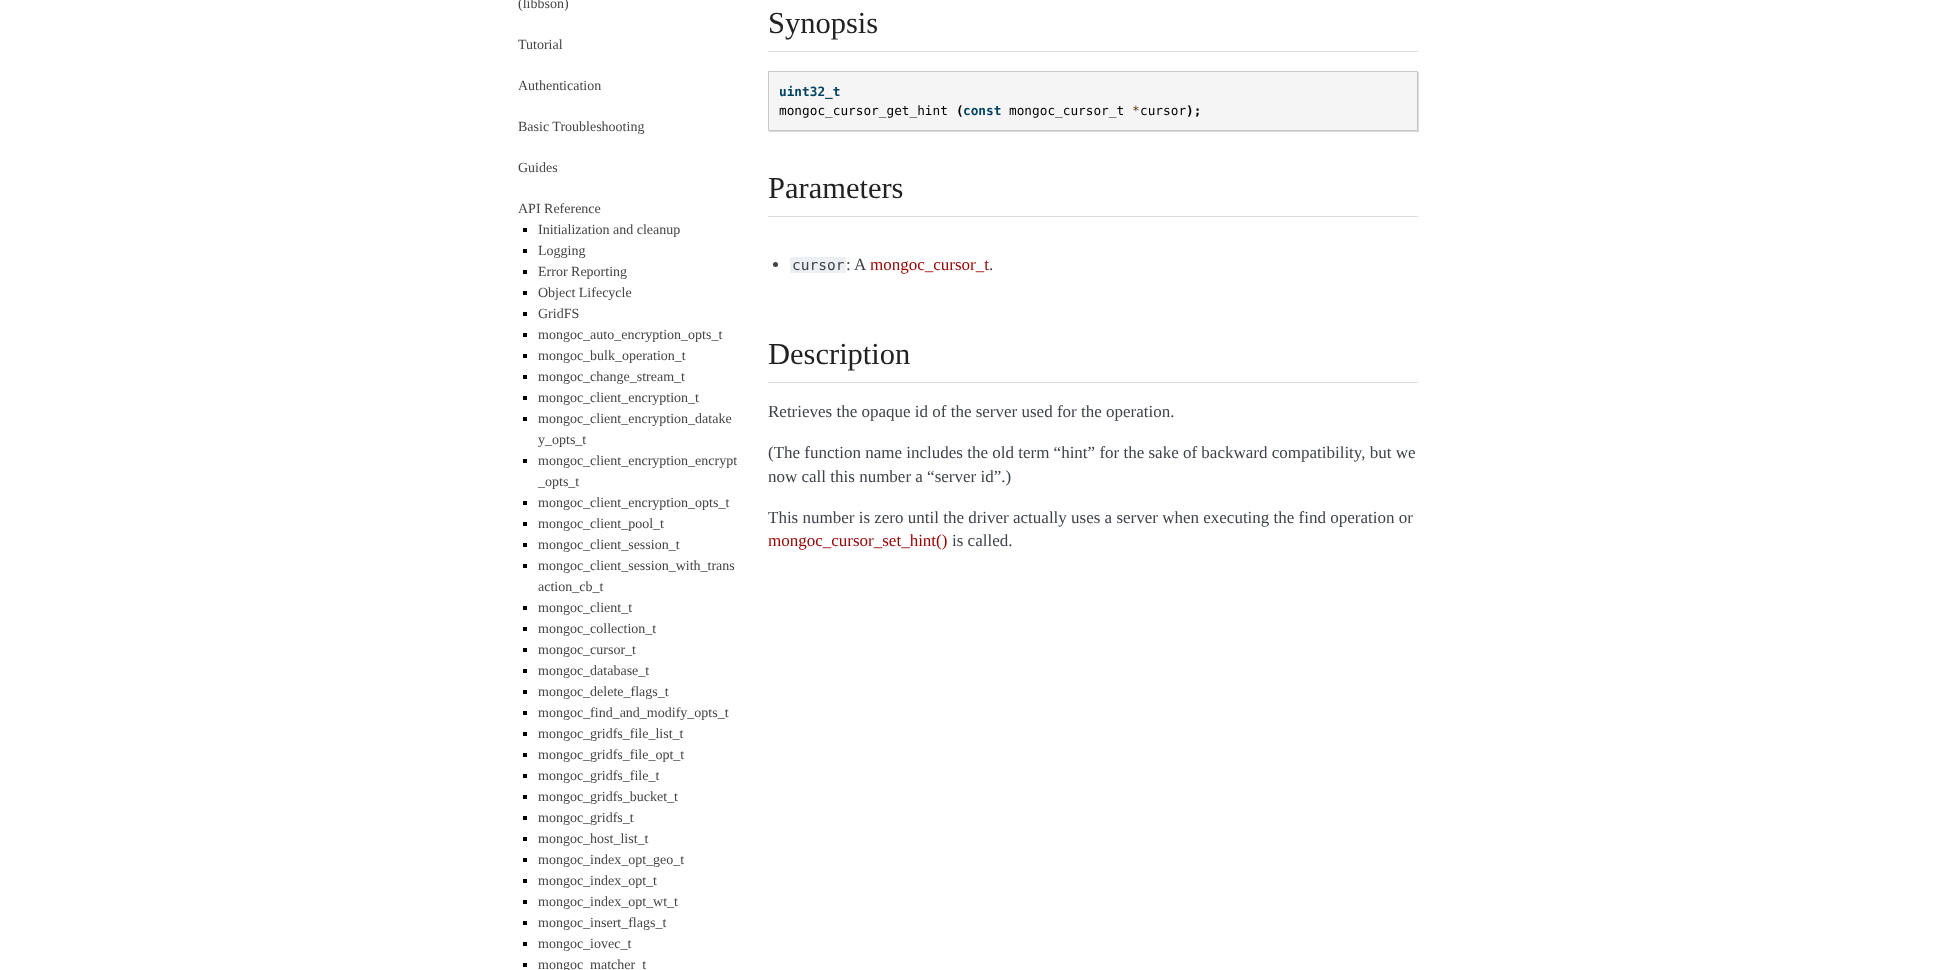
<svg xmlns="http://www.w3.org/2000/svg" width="1956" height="970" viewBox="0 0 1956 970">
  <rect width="100%" height="100%" fill="#fff"/>
  <path d="M523 228h4v4H523z" fill="#000"/>
  <path d="M523 249h4v4H523z" fill="#000"/>
  <path d="M523 270h4v4H523z" fill="#000"/>
  <path d="M523 291h4v4H523z" fill="#000"/>
  <path d="M523 312h4v4H523z" fill="#000"/>
  <path d="M523 333h4v4H523z" fill="#000"/>
  <path d="M523 354h4v4H523z" fill="#000"/>
  <path d="M523 375h4v4H523z" fill="#000"/>
  <path d="M523 396h4v4H523z" fill="#000"/>
  <path d="M523 417h4v4H523z" fill="#000"/>
  <path d="M523 459h4v4H523z" fill="#000"/>
  <path d="M523 501h4v4H523z" fill="#000"/>
  <path d="M523 522h4v4H523z" fill="#000"/>
  <path d="M523 543h4v4H523z" fill="#000"/>
  <path d="M523 564h4v4H523z" fill="#000"/>
  <path d="M523 606h4v4H523z" fill="#000"/>
  <path d="M523 627h4v4H523z" fill="#000"/>
  <path d="M523 648h4v4H523z" fill="#000"/>
  <path d="M523 669h4v4H523z" fill="#000"/>
  <path d="M523 690h4v4H523z" fill="#000"/>
  <path d="M523 711h4v4H523z" fill="#000"/>
  <path d="M523 732h4v4H523z" fill="#000"/>
  <path d="M523 753h4v4H523z" fill="#000"/>
  <path d="M523 774h4v4H523z" fill="#000"/>
  <path d="M523 795h4v4H523z" fill="#000"/>
  <path d="M523 816h4v4H523z" fill="#000"/>
  <path d="M523 837h4v4H523z" fill="#000"/>
  <path d="M523 858h4v4H523z" fill="#000"/>
  <path d="M523 879h4v4H523z" fill="#000"/>
  <path d="M523 900h4v4H523z" fill="#000"/>
  <path d="M523 921h4v4H523z" fill="#000"/>
  <path d="M523 942h4v4H523z" fill="#000"/>
  <path d="M523 963h4v4H523z" fill="#000"/>
  <path d="M768 51h650v1H768z" fill="#ddd"/>
  <path d="M769 72h650v60H769z" fill="#d8d8d8" filter="blur(0.5px)"/>
  <path d="M768.5 71.5h649v59H768.5z" fill="#f5f5f5" stroke="#c6c9cb"/>
  <path d="M768 216h650v1H768z" fill="#ddd"/>
  <circle cx="775.5" cy="264.5" r="2.5" fill="#3e4349"/>
  <path d="M790 257h56v16H790z" fill="#ecf0f3"/>
  <path d="M768 382h650v1H768z" fill="#ddd"/>
  <g font-family="Liberation Serif" font-size="14" fill="#444">
    <text x="518" y="8">(libbson)</text>
    <text x="518" y="49">Tutorial</text>
    <text x="518" y="90">Authentication</text>
    <text x="518" y="131">Basic Troubleshooting</text>
    <text x="518" y="172">Guides</text>
    <text x="518" y="213">API Reference</text>
    <text x="538" y="234">Initialization and cleanup</text>
    <text x="538" y="255">Logging</text>
    <text x="538" y="276">Error Reporting</text>
    <text x="538" y="297">Object Lifecycle</text>
    <text x="538" y="318">GridFS</text>
    <text x="538" y="339">mongoc_auto_encryption_opts_t</text>
    <text x="538" y="360">mongoc_bulk_operation_t</text>
    <text x="538" y="381">mongoc_change_stream_t</text>
    <text x="538" y="402">mongoc_client_encryption_t</text>
    <text x="538" y="423">mongoc_client_encryption_datake</text>
    <text x="538" y="444">y_opts_t</text>
    <text x="538" y="465">mongoc_client_encryption_encrypt</text>
    <text x="538" y="486">_opts_t</text>
    <text x="538" y="507">mongoc_client_encryption_opts_t</text>
    <text x="538" y="528">mongoc_client_pool_t</text>
    <text x="538" y="549">mongoc_client_session_t</text>
    <text x="538" y="570">mongoc_client_session_with_trans</text>
    <text x="538" y="591">action_cb_t</text>
    <text x="538" y="612">mongoc_client_t</text>
    <text x="538" y="633">mongoc_collection_t</text>
    <text x="538" y="654">mongoc_cursor_t</text>
    <text x="538" y="675">mongoc_database_t</text>
    <text x="538" y="696">mongoc_delete_flags_t</text>
    <text x="538" y="717">mongoc_find_and_modify_opts_t</text>
    <text x="538" y="738">mongoc_gridfs_file_list_t</text>
    <text x="538" y="759">mongoc_gridfs_file_opt_t</text>
    <text x="538" y="780">mongoc_gridfs_file_t</text>
    <text x="538" y="801">mongoc_gridfs_bucket_t</text>
    <text x="538" y="822">mongoc_gridfs_t</text>
    <text x="538" y="843">mongoc_host_list_t</text>
    <text x="538" y="864">mongoc_index_opt_geo_t</text>
    <text x="538" y="885">mongoc_index_opt_t</text>
    <text x="538" y="906">mongoc_index_opt_wt_t</text>
    <text x="538" y="927">mongoc_insert_flags_t</text>
    <text x="538" y="948">mongoc_iovec_t</text>
    <text x="538" y="969">mongoc_matcher_t</text>
  </g>
  <text x="768" y="33" font-family="Liberation Serif" font-size="30.5" fill="#212224">Synopsis</text>
  <text x="779" y="96" font-family="DejaVu Sans Mono" font-size="12.75" font-weight="bold" fill="#004461">uint32_t</text>
  <text x="779" y="115" font-family="DejaVu Sans Mono" font-size="12.75" fill="#000">mongoc_cursor_get_hint</text>
  <text x="956" y="115" font-family="DejaVu Sans Mono" font-size="12.75" font-weight="bold" fill="#000">(</text>
  <text x="963" y="115" font-family="DejaVu Sans Mono" font-size="12.75" font-weight="bold" fill="#004461">const</text>
  <text x="1009" y="115" font-family="DejaVu Sans Mono" font-size="12.75" fill="#000">mongoc_cursor_t</text>
  <text x="1132" y="115" font-family="DejaVu Sans Mono" font-size="12.75" fill="#582800">*</text>
  <text x="1140" y="115" font-family="DejaVu Sans Mono" font-size="12.75" fill="#000">cursor</text>
  <text x="1186" y="115" font-family="DejaVu Sans Mono" font-size="12.75" font-weight="bold" fill="#000">);</text>
  <text x="768" y="198" font-family="Liberation Serif" font-size="30.5" fill="#212224">Parameters</text>
  <text x="792" y="270" font-family="DejaVu Sans Mono" font-size="14.5" fill="#3e4349">cursor</text>
  <text x="846" y="270" font-family="Liberation Serif" font-size="17" fill="#3e4349">: A</text>
  <text x="870" y="270" font-family="Liberation Serif" font-size="17" fill="#900">mongoc_cursor_t</text>
  <text x="989" y="270" font-family="Liberation Serif" font-size="17" fill="#3e4349">.</text>
  <text x="768" y="364" font-family="Liberation Serif" font-size="30.5" fill="#212224">Description</text>
  <g font-family="Liberation Serif" font-size="17" fill="#3e4349">
    <text x="768" y="417">Retrieves the opaque id of the server used for the operation.</text>
    <text x="768" y="458">(The function name includes the old term “hint” for the sake of backward compatibility, but we</text>
    <text x="768" y="482">now call this number a “server id”.)</text>
    <text x="768" y="523">This number is zero until the driver actually uses a server when executing the find operation or</text>
  </g>
  <text x="768" y="546" font-family="Liberation Serif" font-size="17" fill="#900">mongoc_cursor_set_hint()</text>
  <text x="952" y="546" font-family="Liberation Serif" font-size="17" fill="#3e4349">is called.</text>
</svg>
